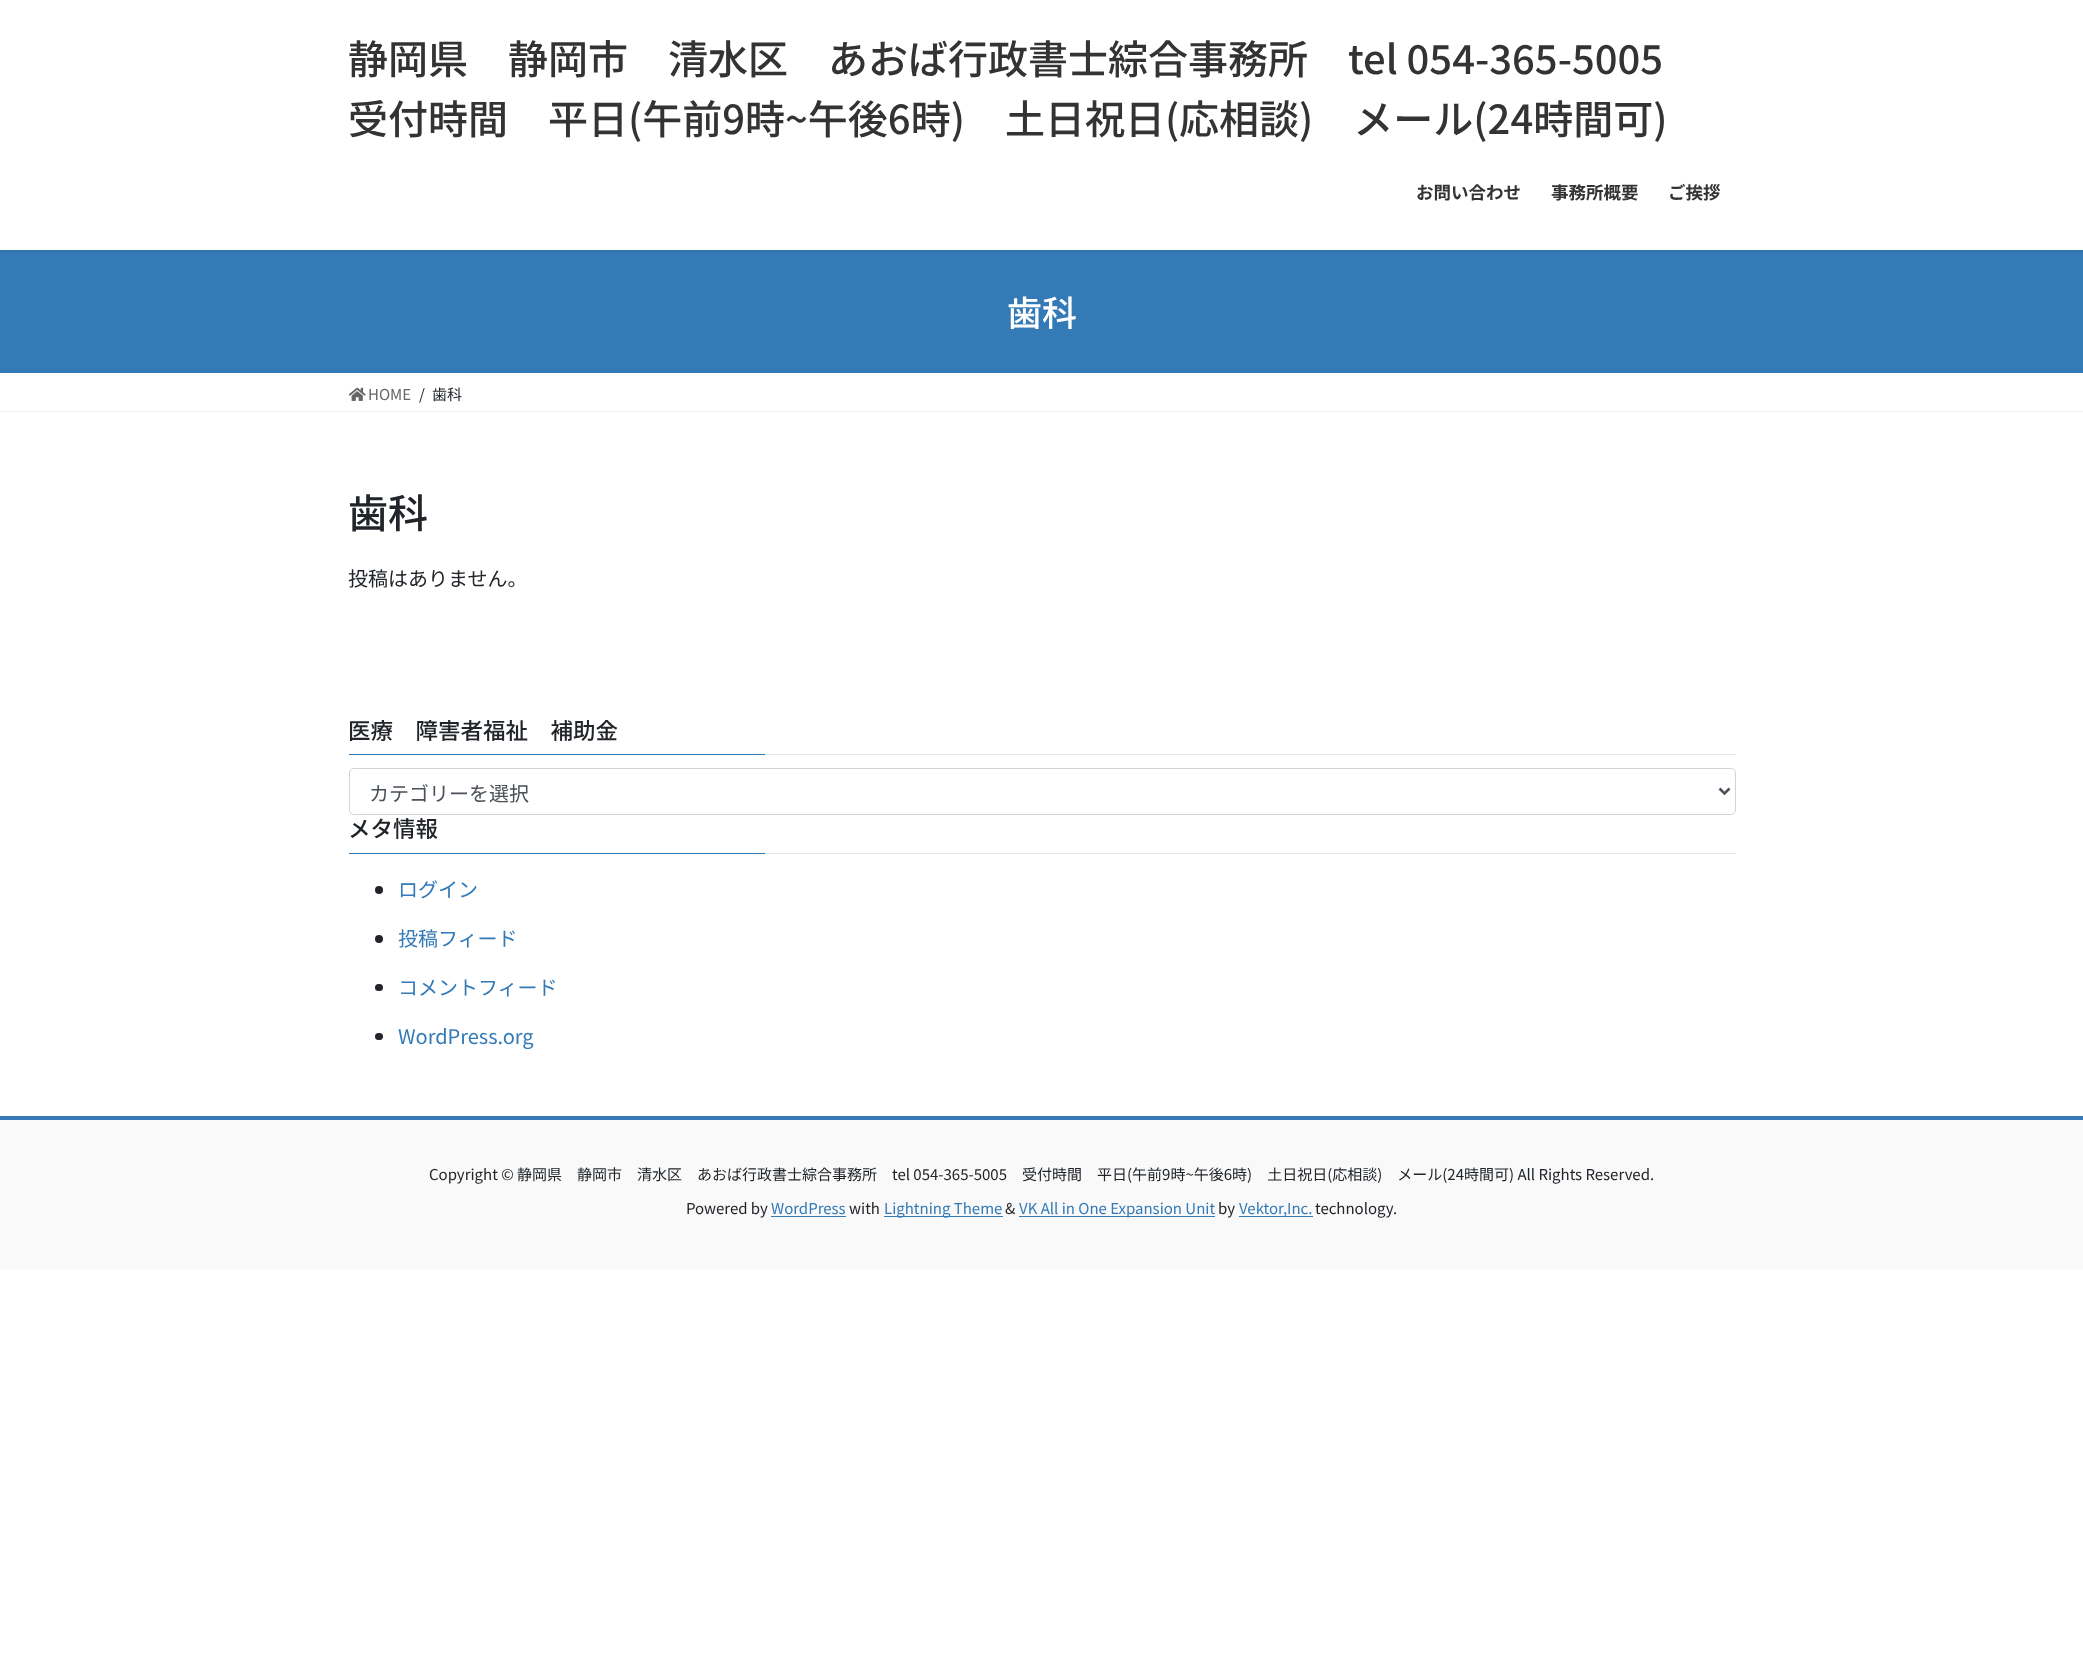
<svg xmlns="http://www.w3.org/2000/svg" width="2083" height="1655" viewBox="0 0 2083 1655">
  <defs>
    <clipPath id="clip1"><path d="M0 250h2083v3H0z"/></clipPath>
  </defs>
  <rect width="100%" height="100%" fill="#fff"/>
  <path d="M0 250h2083v123H0z" fill="#337ab7"/>
  <g clip-path="url(#clip1)">
    <path d="M0 1h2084v250H0z" fill="#0000001a" filter="blur(2px)"/>
  </g>
  <path d="M0 411h2083v1H0z" fill="#f2f2f2"/>
  <image x="348" y="387" width="18" height="14" href="img/1.png"/>
  <path d="M765 754h971v1H765z" fill="#e6e6e6"/>
  <path d="M349 754h416v1H349z" fill="#337ab7"/>
  <rect x="349.5" y="768.5" width="1386" height="46" rx="4.5" fill="none" stroke="#ced4da"/>
  <path d="M1719.5 788.5L1724.5 793.5L1729.5 788.5" fill="none" stroke="#495057" stroke-width="2.5"/>
  <path d="M765 853h971v1H765z" fill="#e6e6e6"/>
  <path d="M349 853h416v1H349z" fill="#337ab7"/>
  <circle cx="379" cy="890" r="4" fill="#212529"/>
  <circle cx="379" cy="939" r="4" fill="#212529"/>
  <rect x="375" y="984" width="8" height="7" rx="3.5" fill="#212529"/>
  <rect x="375" y="1033" width="8" height="7" rx="3.5" fill="#212529"/>
  <path d="M0 1120h2083v149H0z" fill="#f9f9f9"/>
  <path d="M0 1116h2083v4H0z" fill="#337ab7"/>
  <path d="M771 1216h75v1H771z" fill="#337ab7"/>
  <path d="M884 1216h119v1H884z" fill="#337ab7"/>
  <path d="M1019 1216h196v1H1019z" fill="#337ab7"/>
  <path d="M1239 1216h74v1H1239z" fill="#337ab7"/>
  <g font-family="Noto Sans JP" font-size="40" font-weight="500" fill="#333">
    <text x="348" y="74">静岡県　静岡市　清水区　あおば行政書士綜合事務所　tel 054-365-5005</text>
    <text x="348" y="134">受付時間　平日(午前9時~午後6時)　土日祝日(応相談)　メール(24時間可)</text>
  </g>
  <g font-family="Noto Sans JP" font-size="17.5" font-weight="bold" fill="#333">
    <text x="1416" y="199">お問い合わせ</text>
    <text x="1551" y="199">事務所概要</text>
    <text x="1668" y="199">ご挨拶</text>
  </g>
  <text x="1007" y="326" font-family="Noto Sans JP" font-size="35" font-weight="500" fill="#fff">歯科</text>
  <text x="368" y="400" font-family="Noto Sans JP" font-size="15" fill="#666">HOME</text>
  <g font-family="Noto Sans JP" font-size="15" fill="#212529">
    <text x="419" y="400">/</text>
    <text x="432" y="400">歯科</text>
  </g>
  <text x="348" y="528" font-family="Noto Sans JP" font-size="40" font-weight="500" fill="#212529">歯科</text>
  <text x="348" y="586" font-family="Noto Sans JP" font-size="20" fill="#212529">投稿はありません。</text>
  <text x="348" y="739" font-family="Noto Sans JP" font-size="22.5" font-weight="500" fill="#212529">医療　障害者福祉　補助金</text>
  <text x="369" y="801" font-family="Noto Sans JP" font-size="20" fill="#495057">カテゴリーを選択</text>
  <text x="348" y="837" font-family="Noto Sans JP" font-size="22.5" font-weight="500" fill="#212529">メタ情報</text>
  <g font-family="Noto Sans JP" font-size="20" fill="#337ab7">
    <text x="398" y="897">ログイン</text>
    <text x="398" y="946">投稿フィード</text>
    <text x="398" y="995">コメントフィード</text>
    <text x="398" y="1044">WordPress.org</text>
  </g>
  <g font-family="Noto Sans JP" font-size="15" fill="#212529">
    <text x="429" y="1180">Copyright © 静岡県　静岡市　清水区　あおば行政書士綜合事務所　tel 054-365-5005　受付時間　平日(午前9時~午後6時)　土日祝日(応相談)　メール(24時間可) All Rights Reserved.</text>
    <text x="686" y="1214">Powered by</text>
  </g>
  <text x="771" y="1214" font-family="Noto Sans JP" font-size="15" fill="#337ab7">WordPress</text>
  <text x="849" y="1214" font-family="Noto Sans JP" font-size="15" fill="#212529">with</text>
  <text x="884" y="1214" font-family="Noto Sans JP" font-size="15" fill="#337ab7">Lightning Theme</text>
  <text x="1005" y="1214" font-family="Noto Sans JP" font-size="15" fill="#212529">&amp;</text>
  <text x="1019" y="1214" font-family="Noto Sans JP" font-size="15" fill="#337ab7">VK All in One Expansion Unit</text>
  <text x="1218" y="1214" font-family="Noto Sans JP" font-size="15" fill="#212529">by</text>
  <text x="1239" y="1214" font-family="Noto Sans JP" font-size="15" fill="#337ab7">Vektor,Inc.</text>
  <text x="1315" y="1214" font-family="Noto Sans JP" font-size="15" fill="#212529">technology.</text>
</svg>
